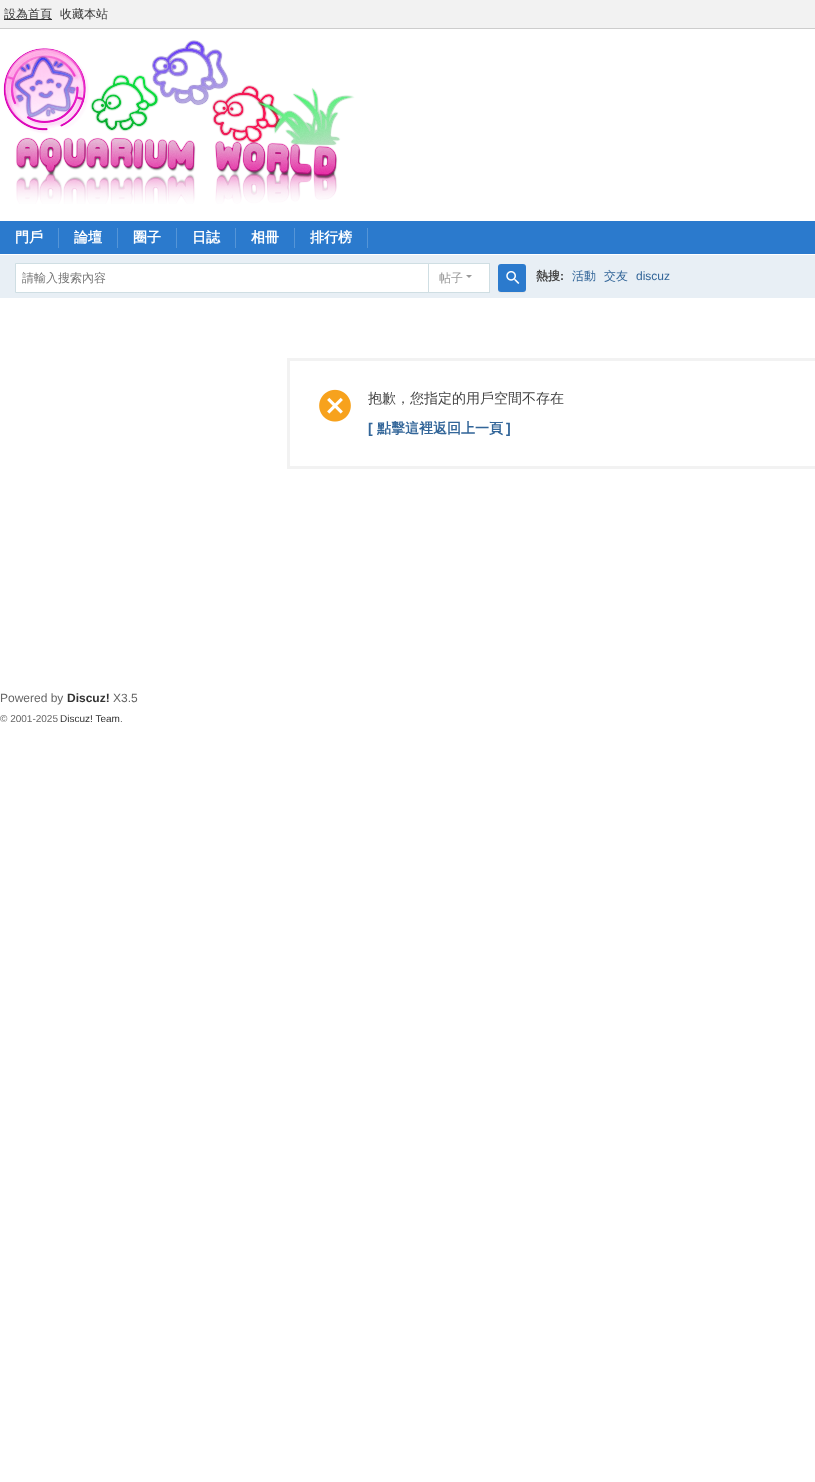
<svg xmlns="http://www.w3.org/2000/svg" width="815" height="1482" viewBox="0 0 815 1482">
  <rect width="100%" height="100%" fill="#fff"/>
  <path d="M0 0h815v28H0z" fill="#f2f2f2"/>
  <path d="M0 28h815v1H0z" fill="#cdcdcd"/>
  <path d="M4 19h48v1H4z" fill="#333"/>
  <image x="3" y="40" width="352" height="164" href="img/1.png"/>
  <path d="M0 221h815v33H0z" fill="#2b7acd"/>
  <path d="M58 228h1v20H58z" fill="#5595d7"/>
  <path d="M117 228h1v20H117z" fill="#5595d7"/>
  <path d="M176 228h1v20H176z" fill="#5595d7"/>
  <path d="M235 228h1v20H235z" fill="#5595d7"/>
  <path d="M294 228h1v20H294z" fill="#5595d7"/>
  <path d="M367 228h1v20H367z" fill="#5595d7"/>
  <path d="M0 255h815v43H0z" fill="#e8eff5"/>
  <path d="M427 263h63v1H427z" fill="#cfdee3"/>
  <path d="M489 263h1v30H489z" fill="#cfdee3"/>
  <path d="M427 292h63v1H427z" fill="#cfdee3"/>
  <path d="M15.5 263.5h413v29H15.5z" fill="#fff" stroke="#cfdee3"/>
  <path d="M429 264h60v28H429z" fill="#fff"/>
  <path d="M466 275H472L469 278Z" fill="#999"/>
  <path d="M498 289C498 293.5 501 293 504.5 293H519.5C523 293 526 293.5 526 289C526 290.5 524.5 292 523 292H501C499.5 292 498 290.5 498 289Z" fill="#e5e5e5"/>
  <rect x="498" y="264" width="28" height="28" rx="3" fill="#2b7acd"/>
  <image x="506" y="271" width="14" height="13" href="img/2.png"/>
  <path d="M288.5 359.5h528v108H288.5z" fill="none" stroke="#f2f2f2" stroke-width="3"/>
  <image x="319" y="389" width="32" height="33" href="img/3.png"/>
  <g font-family="WenQuanYi Zen Hei" font-size="12" font-weight="500" fill="#333">
    <text x="4" y="18">設為首頁</text>
    <text x="60" y="18">收藏本站</text>
  </g>
  <g font-family="WenQuanYi Zen Hei" font-size="14" font-weight="bold" fill="#fff">
    <text x="15" y="242">門戶</text>
    <text x="74" y="242">論壇</text>
    <text x="133" y="242">圈子</text>
    <text x="192" y="242">日誌</text>
    <text x="251" y="242">相冊</text>
    <text x="310" y="242">排行榜</text>
  </g>
  <text x="22" y="282" font-family="WenQuanYi Zen Hei" font-size="12" font-weight="500" fill="#757575">請輸入搜索內容</text>
  <text x="439" y="282" font-family="WenQuanYi Zen Hei" font-size="12" font-weight="500" fill="#999">帖子</text>
  <text x="536" y="280" font-family="WenQuanYi Zen Hei" font-size="12" font-weight="bold" fill="#444">熱搜</text>
  <text x="560" y="280" font-family="Liberation Sans" font-size="12" font-weight="bold" fill="#444">:</text>
  <g font-family="WenQuanYi Zen Hei" font-size="12" font-weight="500" fill="#369">
    <text x="572" y="280">活動</text>
    <text x="604" y="280">交友</text>
  </g>
  <text x="636" y="280" font-family="Liberation Sans" font-size="12" fill="#369">discuz</text>
  <text x="368" y="403" font-family="WenQuanYi Zen Hei" font-size="14" font-weight="500" fill="#444">抱歉，您指定的用戶空間不存在</text>
  <text x="368" y="433" font-family="Liberation Sans" font-size="14" font-weight="bold" fill="#369">[</text>
  <text x="377" y="433" font-family="WenQuanYi Zen Hei" font-size="14" font-weight="bold" fill="#369">點擊這裡返回上一頁</text>
  <text x="506" y="433" font-family="Liberation Sans" font-size="14" font-weight="bold" fill="#369">]</text>
  <text x="0" y="702" font-family="Liberation Sans" font-size="12" fill="#666">Powered by</text>
  <text x="67" y="702" font-family="Liberation Sans" font-size="12" font-weight="bold" fill="#333">Discuz!</text>
  <text x="113" y="702" font-family="Liberation Sans" font-size="12" fill="#666">X3.5</text>
  <text x="0" y="722" font-family="Liberation Sans" font-size="10" fill="#666">© 2001-2025</text>
  <text x="60" y="722" font-family="Liberation Sans" font-size="10" fill="#333">Discuz! Team</text>
  <text x="120" y="722" font-family="Liberation Sans" font-size="10" fill="#666">.</text>
</svg>
